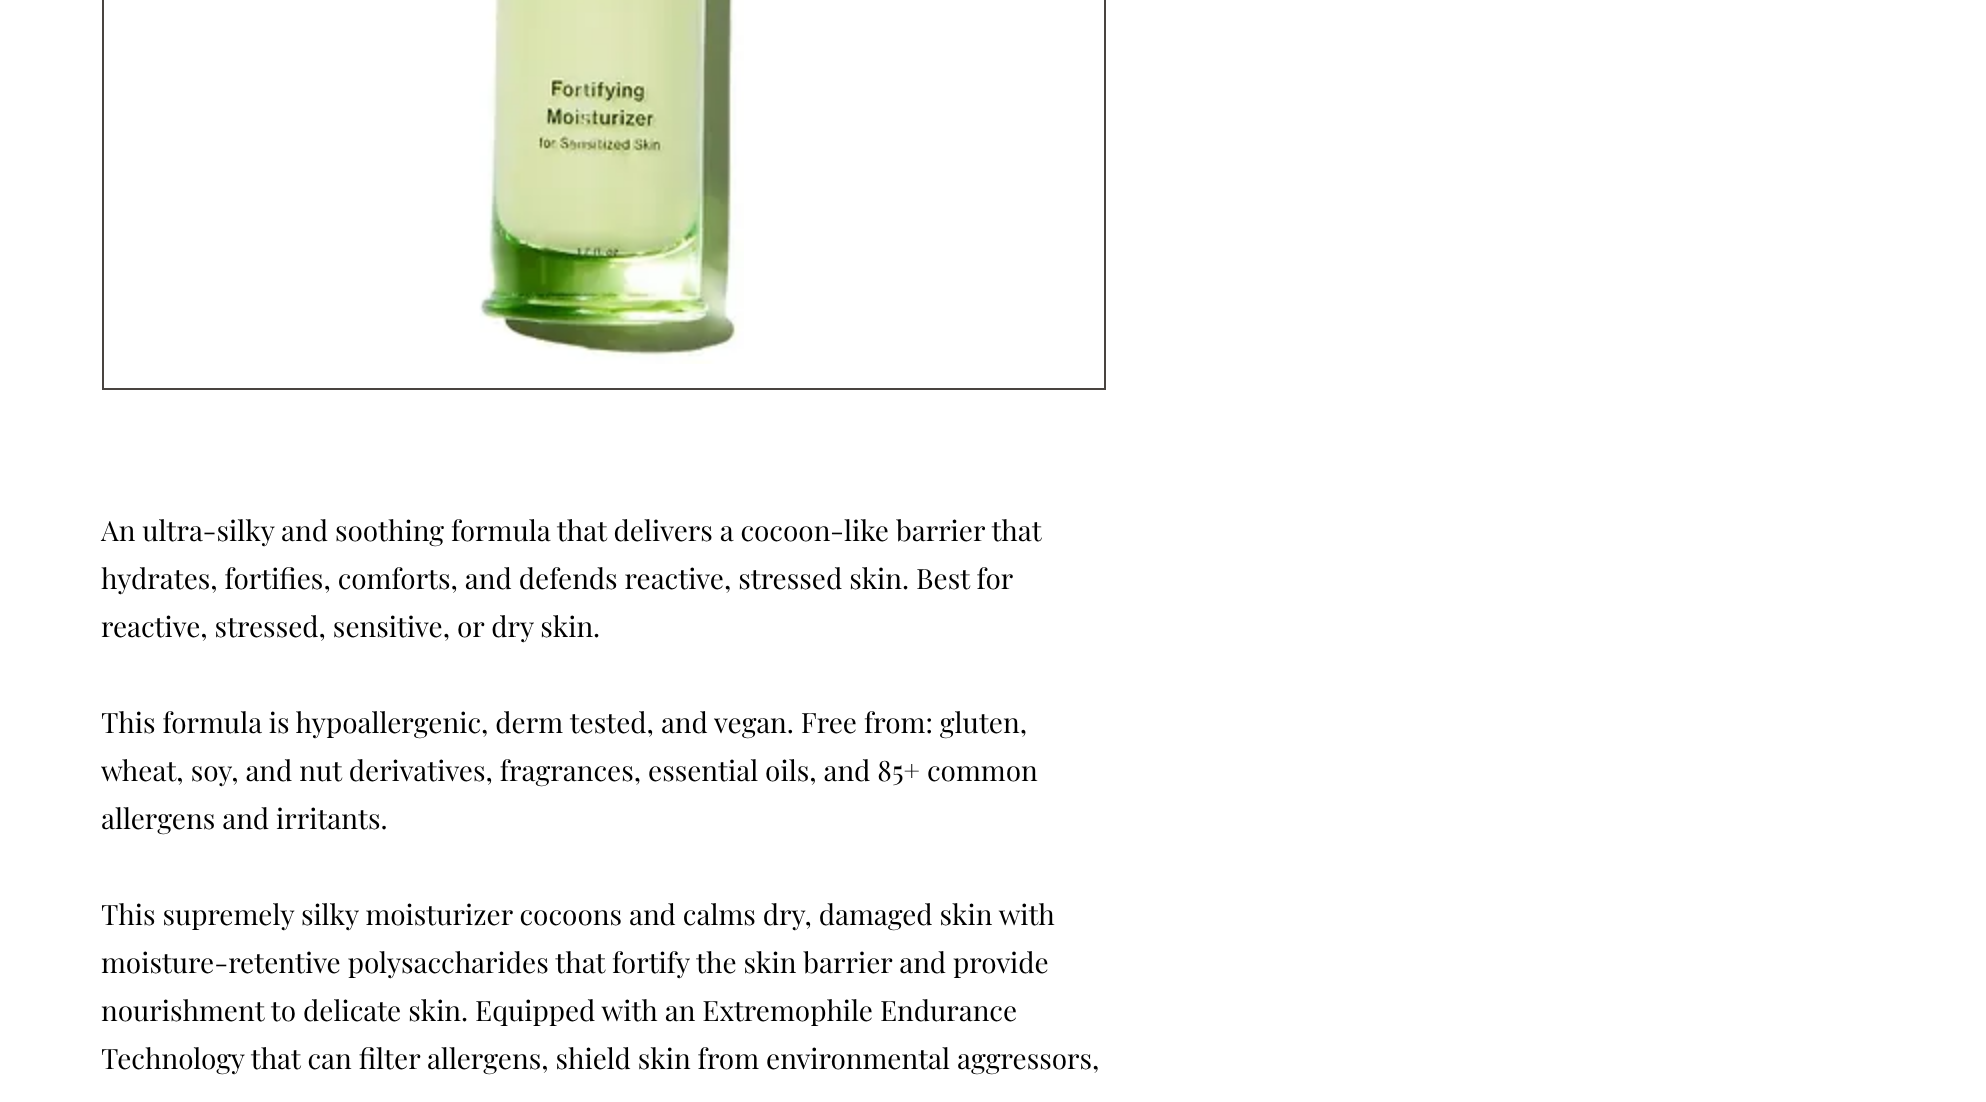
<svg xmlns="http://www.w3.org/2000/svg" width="1986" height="1102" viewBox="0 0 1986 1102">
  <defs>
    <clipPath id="clip1"><path d="M102 506h1000v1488H102z"/></clipPath>
  </defs>
  <rect width="100%" height="100%" fill="#fff"/>
  <path d="M103 -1h1002v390H103z" fill="none" stroke="#494440" stroke-width="2"/>
  <image x="479" y="0" width="265" height="364" href="img/1.png"/>
  <g font-family="Playfair Display" font-size="28" fill="#000">
    <text x="101" y="541">An ultra-silky and soothing formula that delivers a cocoon-like barrier that</text>
    <text x="101" y="589">hydrates, fortifies, comforts, and defends reactive, stressed skin. Best for</text>
    <text x="101" y="637">reactive, stressed, sensitive, or dry skin.</text>
  </g>
  <g clip-path="url(#clip1)">
    <text x="101" y="733" font-family="Playfair Display" font-size="28" fill="#000">This formula is hypoallergenic, derm tested, and vegan. Free from: gluten,</text>
  </g>
  <g font-family="Playfair Display" font-size="28" fill="#000">
    <text x="101" y="781">wheat, soy, and nut derivatives, fragrances, essential oils, and 85+ common</text>
    <text x="101" y="829">allergens and irritants.</text>
  </g>
  <g clip-path="url(#clip1)">
    <text x="101" y="925" font-family="Playfair Display" font-size="28" fill="#000">This supremely silky moisturizer cocoons and calms dry, damaged skin with</text>
  </g>
  <g font-family="Playfair Display" font-size="28" fill="#000">
    <text x="101" y="973">moisture-retentive polysaccharides that fortify the skin barrier and provide</text>
    <text x="101" y="1021">nourishment to delicate skin. Equipped with an Extremophile Endurance</text>
  </g>
  <g clip-path="url(#clip1)">
    <text x="101" y="1069" font-family="Playfair Display" font-size="28" fill="#000">Technology that can filter allergens, shield skin from environmental aggressors,</text>
  </g>
</svg>
